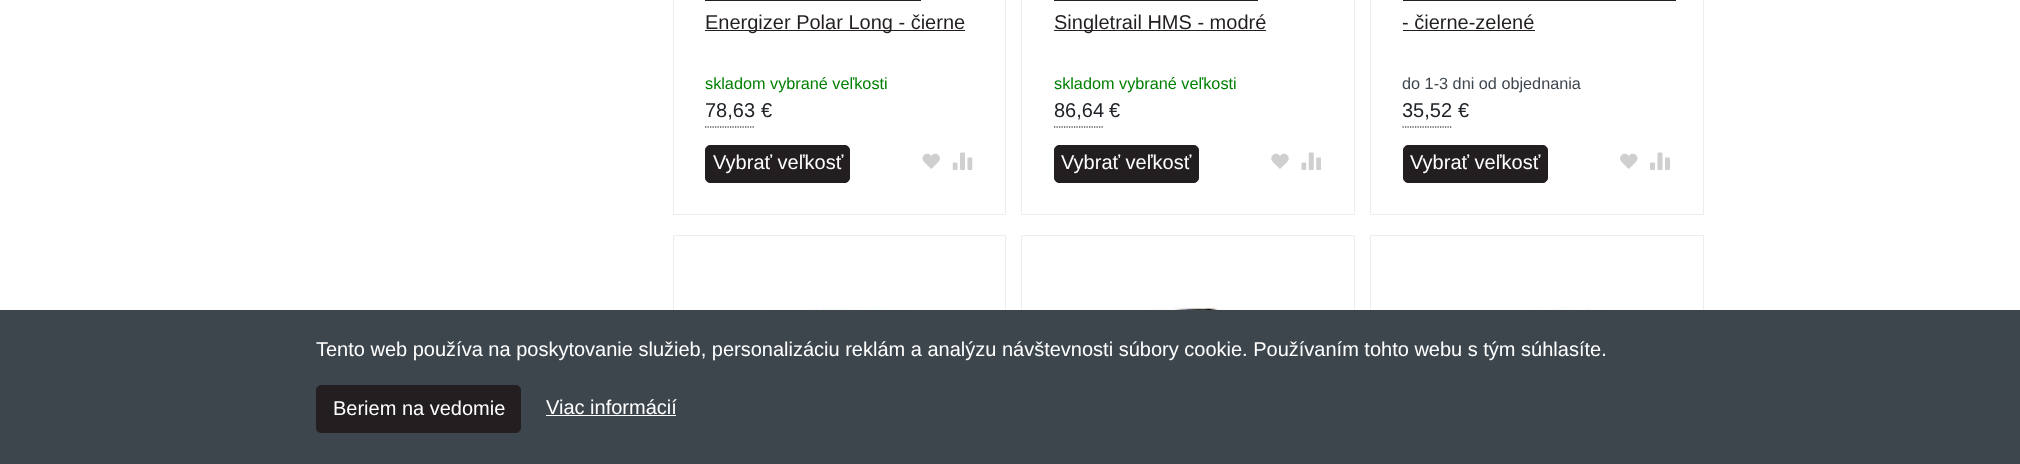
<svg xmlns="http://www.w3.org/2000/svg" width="2020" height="464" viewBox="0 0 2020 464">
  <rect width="100%" height="100%" fill="#fff"/>
  <path d="M673.5 -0.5h332v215H673.5z" fill="none" stroke="#ededed"/>
  <path d="M705 0h216v1H705z" fill="#231f20"/>
  <path d="M705 30h260v1H705z" fill="#231f20"/>
  <path d="M705 127H755" fill="none" stroke="#000" stroke-width="1.2" stroke-dasharray="1.25 1.25"/>
  <rect x="705.5" y="145.5" width="144" height="37" rx="4.5" fill="#231f20" stroke="#231f20"/>
  <image x="922" y="153" width="18" height="16" href="img/1.png"/>
  <image x="952" y="152" width="21" height="18" href="img/2.png"/>
  <path d="M1021.5 -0.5h333v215H1021.5z" fill="none" stroke="#ededed"/>
  <path d="M1054 0h204v1H1054z" fill="#231f20"/>
  <path d="M1054 30h212v1H1054z" fill="#231f20"/>
  <path d="M1054 127H1104" fill="none" stroke="#000" stroke-width="1.2" stroke-dasharray="1.25 1.25"/>
  <rect x="1054.5" y="145.5" width="144" height="37" rx="4.5" fill="#231f20" stroke="#231f20"/>
  <image x="1271" y="153" width="18" height="16" href="img/3.png"/>
  <image x="1301" y="152" width="20" height="18" href="img/4.png"/>
  <path d="M1370.5 -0.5h333v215H1370.5z" fill="none" stroke="#ededed"/>
  <path d="M1403 0h273v1H1403z" fill="#231f20"/>
  <path d="M1403 30h132v1H1403z" fill="#231f20"/>
  <path d="M1402.5 127H1452.5" fill="none" stroke="#000" stroke-width="1.2" stroke-dasharray="1.25 1.25"/>
  <rect x="1403.5" y="145.5" width="144" height="37" rx="4.5" fill="#231f20" stroke="#231f20"/>
  <image x="1620" y="153" width="18" height="16" href="img/5.png"/>
  <image x="1650" y="152" width="20" height="18" href="img/6.png"/>
  <path d="M673.5 235.5h332v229H673.5z" fill="none" stroke="#ededed"/>
  <image x="765" y="307" width="155" height="3" href="img/7.png"/>
  <path d="M1021.5 235.5h333v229H1021.5z" fill="none" stroke="#ededed"/>
  <image x="1144" y="307" width="90" height="3" href="img/8.png"/>
  <path d="M1370.5 235.5h333v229H1370.5z" fill="none" stroke="#ededed"/>
  <image x="1473" y="307" width="130" height="3" href="img/9.png"/>
  <path d="M0 310h2020v154H0z" fill="#3d464d"/>
  <rect x="316.5" y="385.5" width="204" height="47" rx="4.5" fill="#231f20" stroke="#231f20"/>
  <path d="M546 415h130v1H546z" fill="#fff"/>
  <text x="705" y="29" font-family="Liberation Sans" font-size="20" fill="#231f20">Energizer Polar Long - čierne</text>
  <text x="705" y="89" font-family="Liberation Sans" font-size="16.25" fill="#008000">skladom vybrané veľkosti</text>
  <g font-family="Liberation Sans" font-size="20" fill="#212529">
    <text x="705" y="117">78,63</text>
    <text x="761" y="117">€</text>
  </g>
  <text x="713" y="169" font-family="Liberation Sans" font-size="20" fill="#fff">Vybrať veľkosť</text>
  <text x="1054" y="29" font-family="Liberation Sans" font-size="20" fill="#231f20">Singletrail HMS - modré</text>
  <text x="1054" y="89" font-family="Liberation Sans" font-size="16.25" fill="#008000">skladom vybrané veľkosti</text>
  <g font-family="Liberation Sans" font-size="20" fill="#212529">
    <text x="1054" y="117">86,64</text>
    <text x="1109" y="117">€</text>
  </g>
  <text x="1061" y="169" font-family="Liberation Sans" font-size="20" fill="#fff">Vybrať veľkosť</text>
  <text x="1402" y="29" font-family="Liberation Sans" font-size="20" fill="#231f20">- čierne-zelené</text>
  <text x="1402" y="89" font-family="Liberation Sans" font-size="16.25" fill="#3d464d">do 1-3 dni od objednania</text>
  <g font-family="Liberation Sans" font-size="20" fill="#212529">
    <text x="1402" y="117">35,52</text>
    <text x="1458" y="117">€</text>
  </g>
  <g font-family="Liberation Sans" font-size="20" fill="#fff">
    <text x="1410" y="169">Vybrať veľkosť</text>
    <text x="316" y="356">Tento web používa na poskytovanie služieb, personalizáciu reklám a analýzu návštevnosti súbory cookie. Používaním tohto webu s tým súhlasíte.</text>
    <text x="333" y="415">Beriem na vedomie</text>
    <text x="546" y="414">Viac informácií</text>
  </g>
</svg>
